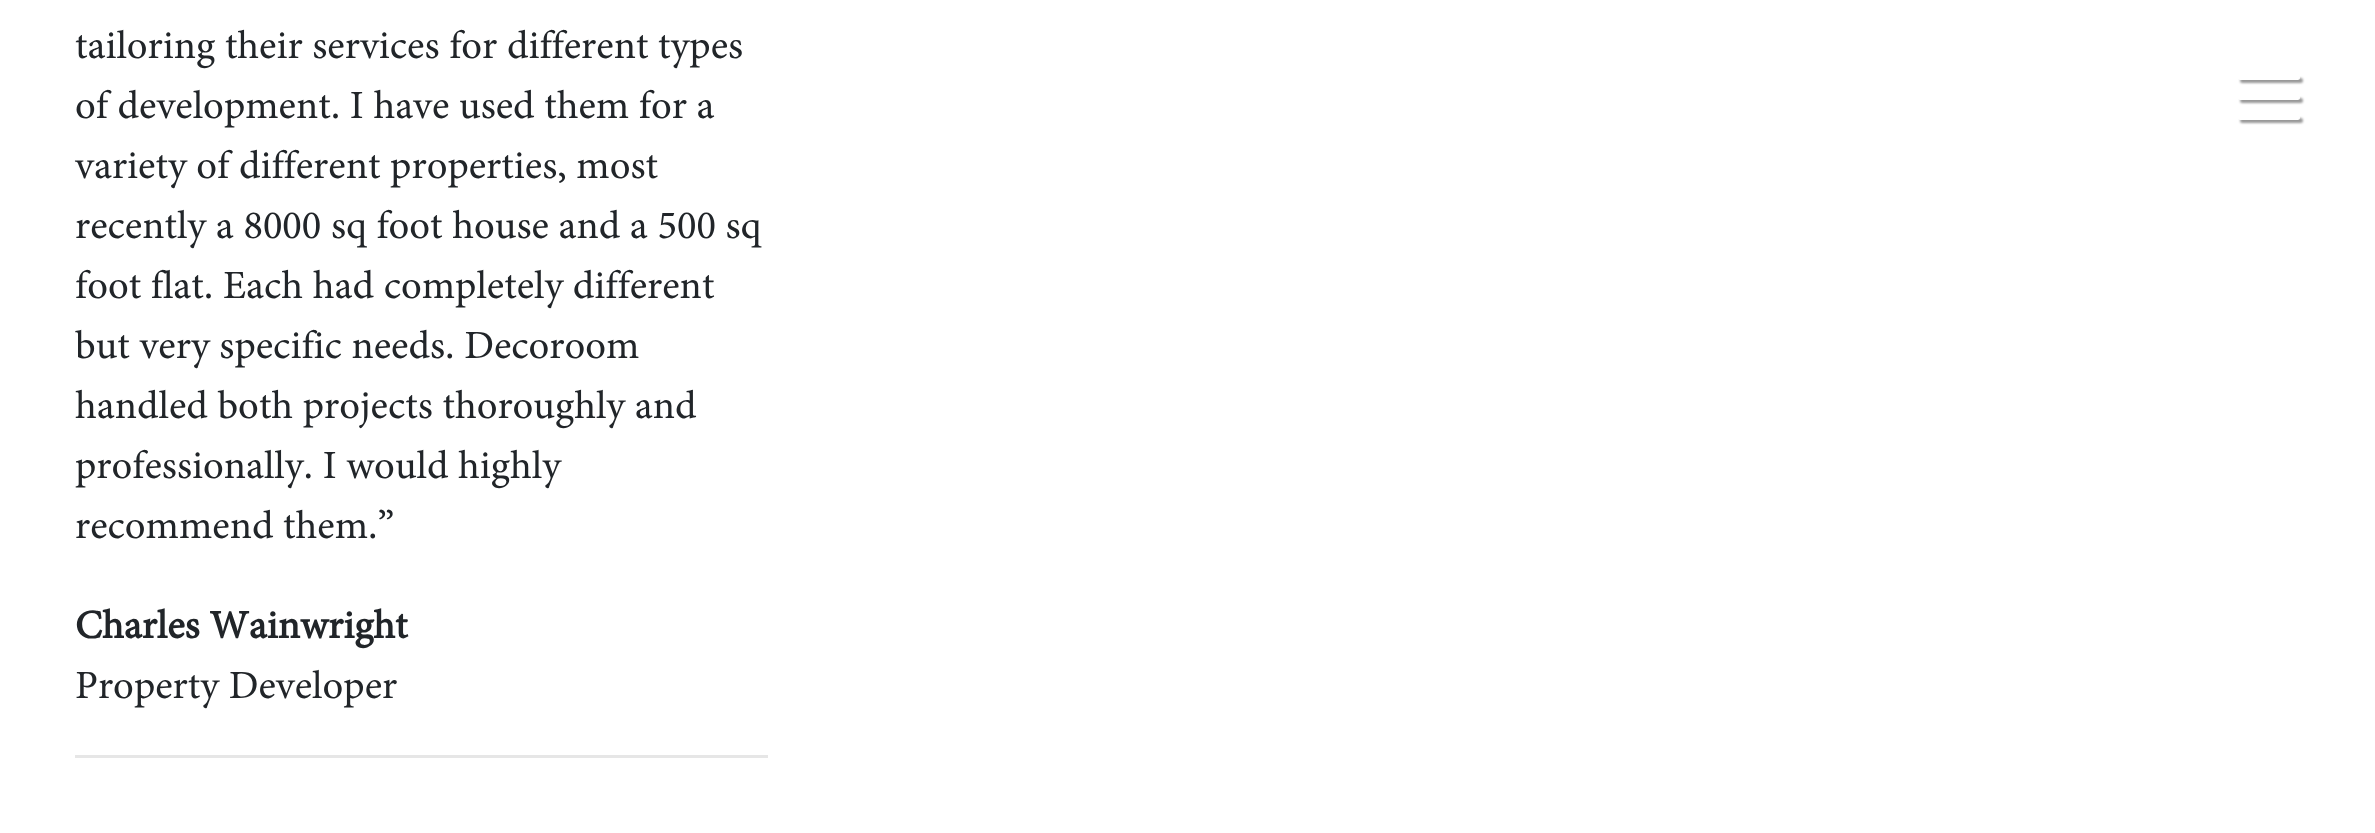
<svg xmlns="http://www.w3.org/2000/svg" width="2375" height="833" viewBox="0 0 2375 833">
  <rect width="100%" height="100%" fill="#fff"/>
  <path d="M75 755h693v3H75z" fill="#e6e6e6"/>
  <rect x="2240" y="78" width="63" height="5" rx="2.5" fill="#00000066" filter="blur(1px)"/>
  <rect x="2238" y="75" width="62" height="5" rx="2.5" fill="#fff"/>
  <rect x="2240" y="98" width="63" height="5" rx="2.5" fill="#00000066" filter="blur(1px)"/>
  <rect x="2238" y="95" width="62" height="5" rx="2.5" fill="#fff"/>
  <rect x="2240" y="118" width="63" height="5" rx="2.5" fill="#00000066" filter="blur(1px)"/>
  <rect x="2238" y="115" width="62" height="5" rx="2.5" fill="#fff"/>
  <g font-family="'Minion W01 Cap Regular'" font-size="40" fill="#212529">
    <text x="75" y="58">tailoring their services for different types</text>
    <text x="75" y="118">of development. I have used them for a</text>
    <text x="75" y="178">variety of different properties, most</text>
    <text x="75" y="238">recently a 8000 sq foot house and a 500 sq</text>
    <text x="75" y="298">foot flat. Each had completely different</text>
    <text x="75" y="358">but very specific needs. Decoroom</text>
    <text x="75" y="418">handled both projects thoroughly and</text>
    <text x="75" y="478">professionally. I would highly</text>
    <text x="75" y="538">recommend them.”</text>
  </g>
  <text x="75" y="638" font-family="'Minion W01 Cap Regular'" font-size="40" font-weight="bold" fill="#212529">Charles Wainwright</text>
  <text x="75" y="698" font-family="'Minion W01 Cap Regular'" font-size="40" fill="#212529">Property Developer</text>
</svg>
